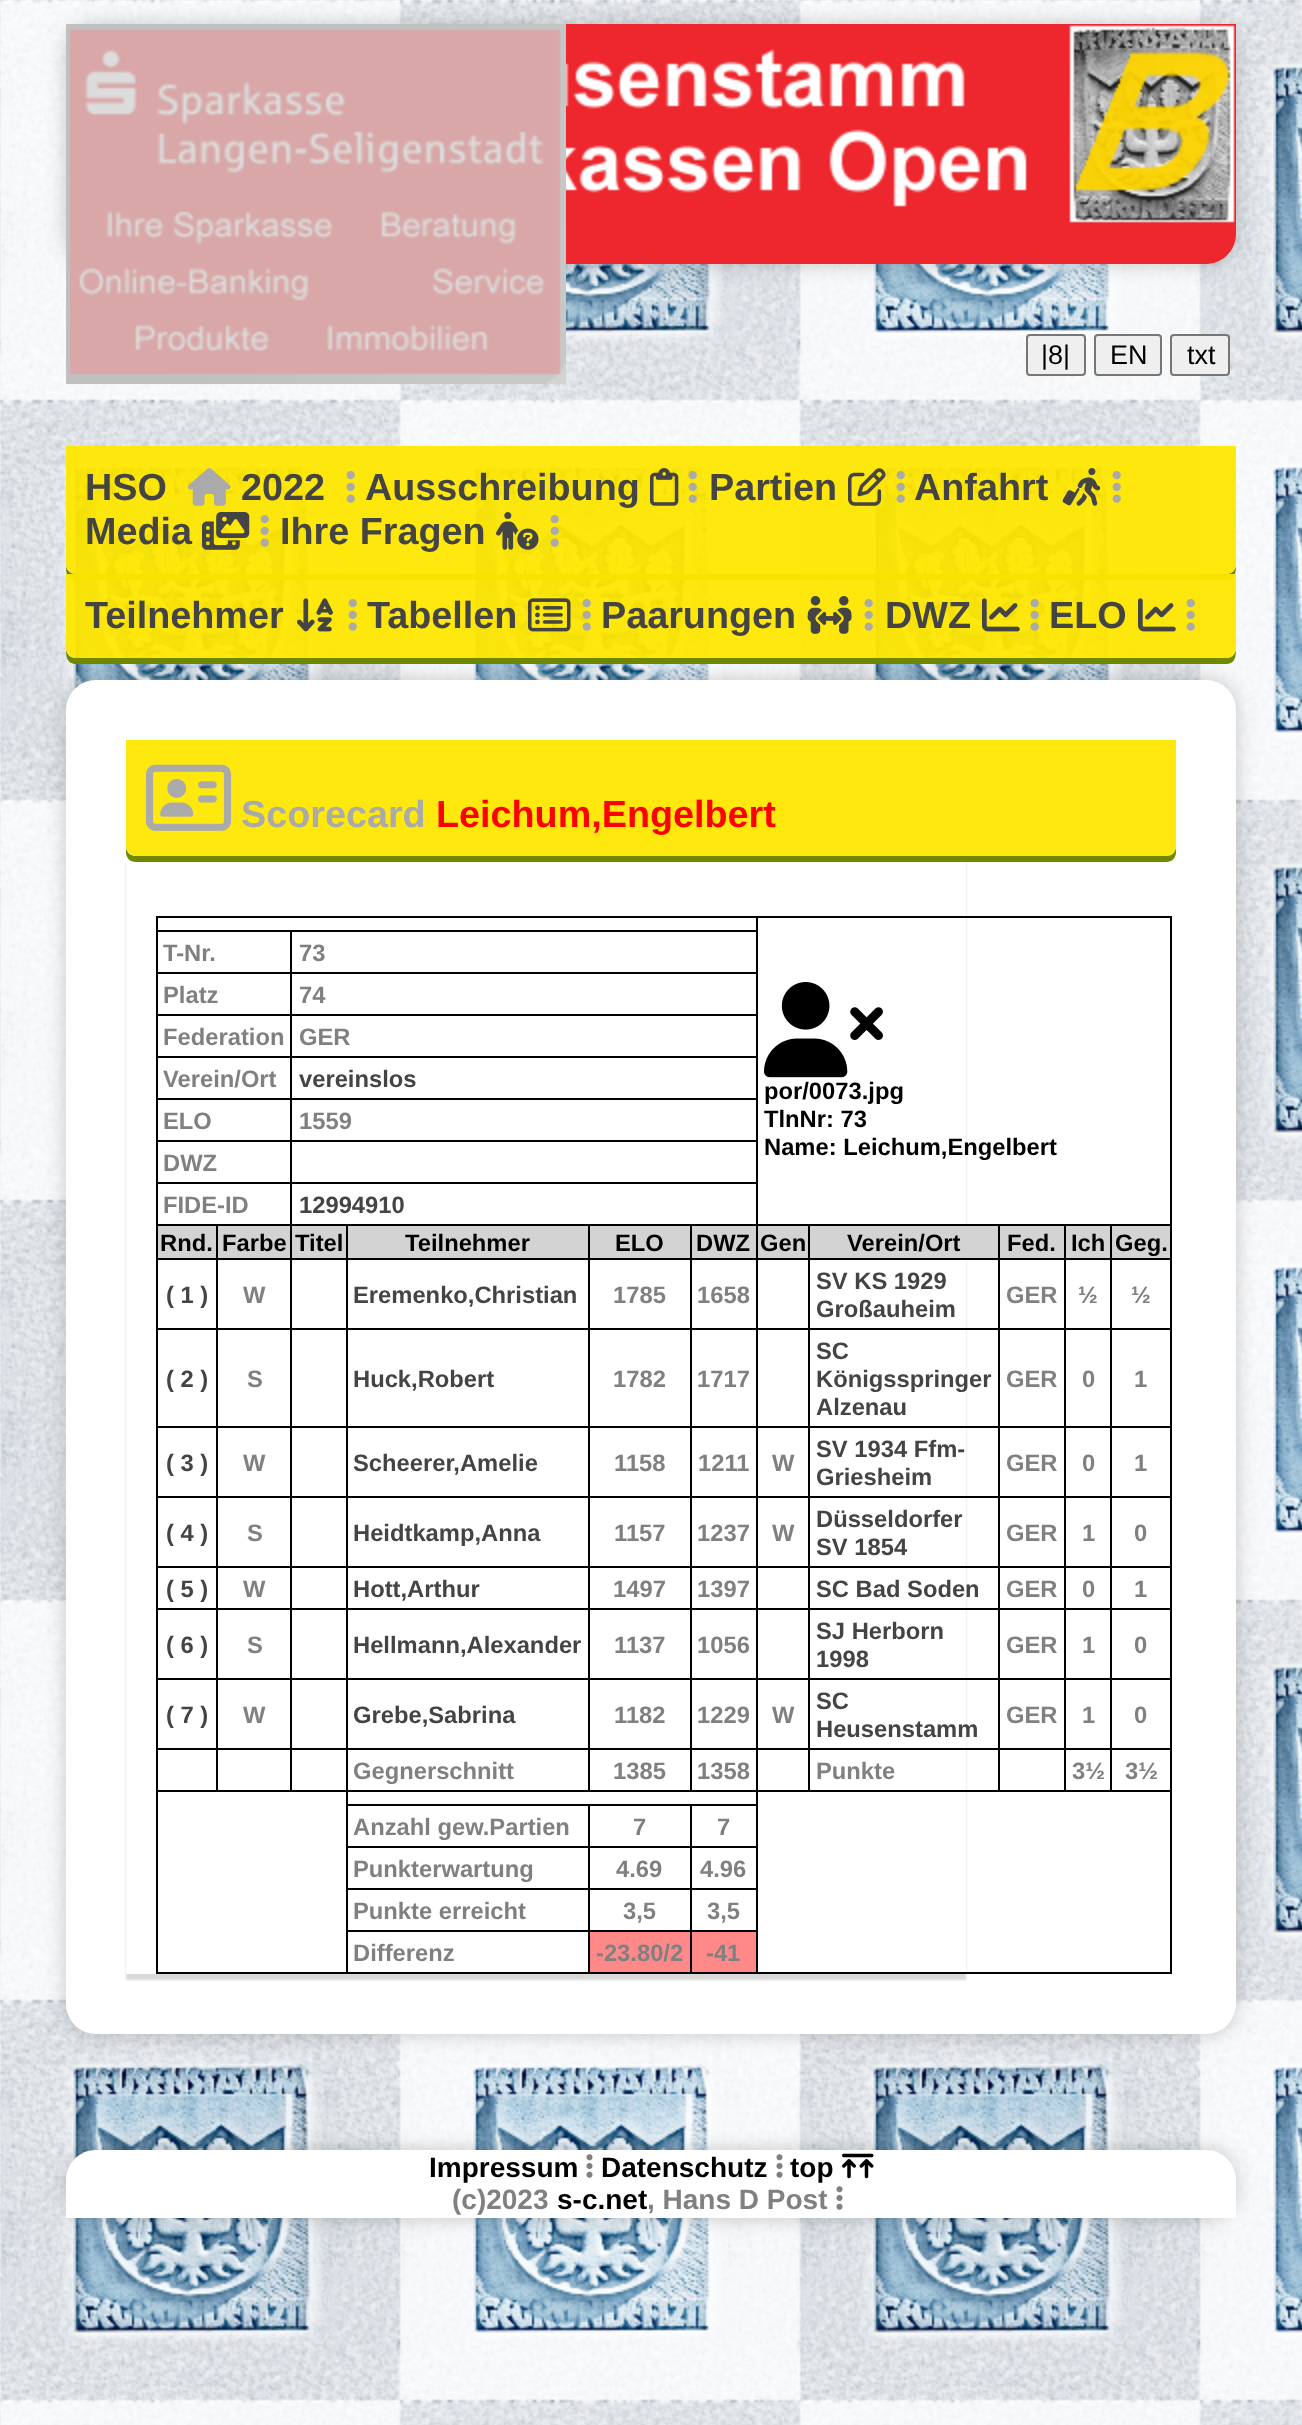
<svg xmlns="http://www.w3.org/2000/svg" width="1302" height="2425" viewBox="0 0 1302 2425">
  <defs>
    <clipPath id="clip1"><path d="M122 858H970V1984H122ZM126 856H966V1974H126Z" clip-rule="evenodd"/></clipPath>
  </defs>
  <rect width="100%" height="100%" fill="#fff"/>
  <image x="0" y="0" width="1302" height="2425" href="img/1.png"/>
  <rect x="66" y="24" width="1170" height="240" rx="30" fill="#00000033" filter="blur(10px)"/>
  <path d="M66 24H1236V234C1236 250.5 1222.5 264 1206 264H96C79.5 264 66 250.5 66 234Z" fill="#ee272e"/>
  <image x="566" y="25" width="669" height="198" href="img/2.png"/>
  <path d="M66 24h500v360H66z" fill="#d3d3d3"/>
  <image x="66" y="24" width="500" height="360" href="img/3.png"/>
  <rect x="1027" y="335" width="58" height="40" rx="3" fill="#efefef" stroke="#767676" stroke-width="2"/>
  <rect x="1095" y="335" width="66" height="40" rx="3" fill="#efefef" stroke="#767676" stroke-width="2"/>
  <rect x="1171" y="335" width="58" height="40" rx="3" fill="#efefef" stroke="#767676" stroke-width="2"/>
  <path d="M66 564C66 571 66 580 76 580H1226C1236 580 1236 571 1236 564C1236 570 1232 574 1226 574H76C70 574 66 570 66 564Z" fill="#708900"/>
  <path d="M66 446H1236V564C1236 569.5 1231.5 574 1226 574H76C70.5 574 66 569.5 66 564Z" fill="#ffe700f2"/>
  <image x="188" y="468" width="43" height="38" href="img/4.png"/>
  <image x="346" y="471" width="9" height="32" href="img/5.png"/>
  <image x="650" y="468" width="29" height="38" href="img/6.png"/>
  <image x="688" y="471" width="9" height="32" href="img/7.png"/>
  <image x="848" y="468" width="38" height="38" href="img/8.png"/>
  <image x="896" y="471" width="9" height="32" href="img/9.png"/>
  <image x="1062" y="468" width="39" height="38" href="img/10.png"/>
  <image x="1112" y="471" width="9" height="32" href="img/11.png"/>
  <image x="202" y="512" width="48" height="38" href="img/12.png"/>
  <image x="260" y="515" width="9" height="32" href="img/13.png"/>
  <image x="496" y="512" width="43" height="38" href="img/14.png"/>
  <image x="550" y="515" width="9" height="32" href="img/15.png"/>
  <path d="M66 648C66 655 66 664 76 664H1226C1236 664 1236 655 1236 648C1236 654 1232 658 1226 658H76C70 658 66 654 66 648Z" fill="#708900"/>
  <path d="M66 574H1236V648C1236 653.5 1231.5 658 1226 658H76C70.5 658 66 653.5 66 648Z" fill="#ffe700f2"/>
  <image x="297" y="598" width="36" height="34" href="img/16.png"/>
  <image x="348" y="599" width="9" height="32" href="img/17.png"/>
  <image x="528" y="598" width="43" height="34" href="img/18.png"/>
  <image x="582" y="599" width="9" height="32" href="img/19.png"/>
  <image x="807" y="596" width="45" height="38" href="img/20.png"/>
  <image x="864" y="599" width="9" height="32" href="img/21.png"/>
  <image x="982" y="598" width="38" height="34" href="img/22.png"/>
  <image x="1030" y="599" width="9" height="32" href="img/23.png"/>
  <image x="1138" y="598" width="38" height="34" href="img/24.png"/>
  <image x="1186" y="599" width="9" height="32" href="img/25.png"/>
  <rect x="66" y="680" width="1170" height="1354" rx="30" fill="#00000033" filter="blur(10px)"/>
  <rect x="66" y="680" width="1170" height="1354" rx="30" fill="#fff"/>
  <path d="M126 846V852C126 858 130 862 136 862H1166C1172 862 1176 858 1176 852V846C1176 852 1172 856 1166 856H136C130 856 126 852 126 846Z" fill="#708900"/>
  <path d="M126 740H1176V846C1176 851.5 1171.5 856 1166 856H136C130.5 856 126 851.5 126 846Z" fill="#ffe700f2"/>
  <image x="146" y="764" width="86" height="67" href="img/26.png"/>
  <g clip-path="url(#clip1)">
    <path d="M126 862h840v1118H126z" fill="#00000026" filter="blur(1px)"/>
  </g>
  <path d="M156 916h1016v2H156z" fill="#000"/>
  <path d="M1170 916h2v1058H1170z" fill="#000"/>
  <path d="M156 1972h1016v2H156z" fill="#000"/>
  <path d="M156 916h2v1058H156z" fill="#000"/>
  <path d="M290 930h468v2H290z" fill="#000"/>
  <path d="M290 972h468v2H290z" fill="#000"/>
  <path d="M290 1014h468v2H290z" fill="#000"/>
  <path d="M290 1056h468v2H290z" fill="#000"/>
  <path d="M290 1098h468v2H290z" fill="#000"/>
  <path d="M290 1140h468v2H290z" fill="#000"/>
  <path d="M290 1182h468v2H290z" fill="#000"/>
  <path d="M1110 1224h62v2H1110z" fill="#000"/>
  <path d="M158 1226h1012v32H158z" fill="#d3d3d3"/>
  <path d="M1110 1258h62v2H1110z" fill="#000"/>
  <path d="M1110 1328h62v2H1110z" fill="#000"/>
  <path d="M1110 1426h62v2H1110z" fill="#000"/>
  <path d="M1110 1496h62v2H1110z" fill="#000"/>
  <path d="M1110 1566h62v2H1110z" fill="#000"/>
  <path d="M1110 1608h62v2H1110z" fill="#000"/>
  <path d="M1110 1678h62v2H1110z" fill="#000"/>
  <path d="M1110 1748h62v2H1110z" fill="#000"/>
  <path d="M756 1790h416v2H756z" fill="#000"/>
  <path d="M1110 1748h2v44H1110z" fill="#000"/>
  <path d="M1064 1748h48v2H1064z" fill="#000"/>
  <path d="M1110 1678h2v72H1110z" fill="#000"/>
  <path d="M1064 1678h48v2H1064z" fill="#000"/>
  <path d="M1110 1608h2v72H1110z" fill="#000"/>
  <path d="M1064 1608h48v2H1064z" fill="#000"/>
  <path d="M1110 1566h2v44H1110z" fill="#000"/>
  <path d="M1064 1566h48v2H1064z" fill="#000"/>
  <path d="M1110 1496h2v72H1110z" fill="#000"/>
  <path d="M1064 1496h48v2H1064z" fill="#000"/>
  <path d="M1110 1426h2v72H1110z" fill="#000"/>
  <path d="M1064 1426h48v2H1064z" fill="#000"/>
  <path d="M1110 1328h2v100H1110z" fill="#000"/>
  <path d="M1064 1328h48v2H1064z" fill="#000"/>
  <path d="M1110 1258h2v72H1110z" fill="#000"/>
  <path d="M1064 1258h48v2H1064z" fill="#000"/>
  <path d="M1110 1224h2v36H1110z" fill="#000"/>
  <path d="M1064 1224h48v2H1064z" fill="#000"/>
  <path d="M1064 1748h2v44H1064z" fill="#000"/>
  <path d="M998 1748h68v2H998z" fill="#000"/>
  <path d="M1064 1678h2v72H1064z" fill="#000"/>
  <path d="M998 1678h68v2H998z" fill="#000"/>
  <path d="M1064 1608h2v72H1064z" fill="#000"/>
  <path d="M998 1608h68v2H998z" fill="#000"/>
  <path d="M1064 1566h2v44H1064z" fill="#000"/>
  <path d="M998 1566h68v2H998z" fill="#000"/>
  <path d="M1064 1496h2v72H1064z" fill="#000"/>
  <path d="M998 1496h68v2H998z" fill="#000"/>
  <path d="M1064 1426h2v72H1064z" fill="#000"/>
  <path d="M998 1426h68v2H998z" fill="#000"/>
  <path d="M1064 1328h2v100H1064z" fill="#000"/>
  <path d="M998 1328h68v2H998z" fill="#000"/>
  <path d="M1064 1258h2v72H1064z" fill="#000"/>
  <path d="M998 1258h68v2H998z" fill="#000"/>
  <path d="M1064 1224h2v36H1064z" fill="#000"/>
  <path d="M998 1224h68v2H998z" fill="#000"/>
  <path d="M998 1748h2v44H998z" fill="#000"/>
  <path d="M808 1748h192v2H808z" fill="#000"/>
  <path d="M998 1678h2v72H998z" fill="#000"/>
  <path d="M808 1678h192v2H808z" fill="#000"/>
  <path d="M998 1608h2v72H998z" fill="#000"/>
  <path d="M808 1608h192v2H808z" fill="#000"/>
  <path d="M998 1566h2v44H998z" fill="#000"/>
  <path d="M808 1566h192v2H808z" fill="#000"/>
  <path d="M998 1496h2v72H998z" fill="#000"/>
  <path d="M808 1496h192v2H808z" fill="#000"/>
  <path d="M998 1426h2v72H998z" fill="#000"/>
  <path d="M808 1426h192v2H808z" fill="#000"/>
  <path d="M998 1328h2v100H998z" fill="#000"/>
  <path d="M808 1328h192v2H808z" fill="#000"/>
  <path d="M998 1258h2v72H998z" fill="#000"/>
  <path d="M808 1258h192v2H808z" fill="#000"/>
  <path d="M998 1224h2v36H998z" fill="#000"/>
  <path d="M808 1224h192v2H808z" fill="#000"/>
  <path d="M808 1748h2v44H808z" fill="#000"/>
  <path d="M756 1748h54v2H756z" fill="#000"/>
  <path d="M808 1678h2v72H808z" fill="#000"/>
  <path d="M756 1678h54v2H756z" fill="#000"/>
  <path d="M808 1608h2v72H808z" fill="#000"/>
  <path d="M756 1608h54v2H756z" fill="#000"/>
  <path d="M808 1566h2v44H808z" fill="#000"/>
  <path d="M756 1566h54v2H756z" fill="#000"/>
  <path d="M808 1496h2v72H808z" fill="#000"/>
  <path d="M756 1496h54v2H756z" fill="#000"/>
  <path d="M808 1426h2v72H808z" fill="#000"/>
  <path d="M756 1426h54v2H756z" fill="#000"/>
  <path d="M808 1328h2v100H808z" fill="#000"/>
  <path d="M756 1328h54v2H756z" fill="#000"/>
  <path d="M808 1258h2v72H808z" fill="#000"/>
  <path d="M756 1258h54v2H756z" fill="#000"/>
  <path d="M808 1224h2v36H808z" fill="#000"/>
  <path d="M756 1224h54v2H756z" fill="#000"/>
  <path d="M690 1804h68v2H690z" fill="#000"/>
  <path d="M690 1846h68v2H690z" fill="#000"/>
  <path d="M690 1888h68v2H690z" fill="#000"/>
  <path d="M690 1930h68v2H690z" fill="#000"/>
  <path d="M756 1790h2v184H756z" fill="#000"/>
  <path d="M346 1790h412v2H346z" fill="#000"/>
  <path d="M756 1748h2v44H756z" fill="#000"/>
  <path d="M690 1748h68v2H690z" fill="#000"/>
  <path d="M756 1678h2v72H756z" fill="#000"/>
  <path d="M690 1678h68v2H690z" fill="#000"/>
  <path d="M756 1608h2v72H756z" fill="#000"/>
  <path d="M690 1608h68v2H690z" fill="#000"/>
  <path d="M756 1566h2v44H756z" fill="#000"/>
  <path d="M690 1566h68v2H690z" fill="#000"/>
  <path d="M756 1496h2v72H756z" fill="#000"/>
  <path d="M690 1496h68v2H690z" fill="#000"/>
  <path d="M756 1426h2v72H756z" fill="#000"/>
  <path d="M690 1426h68v2H690z" fill="#000"/>
  <path d="M756 1328h2v100H756z" fill="#000"/>
  <path d="M690 1328h68v2H690z" fill="#000"/>
  <path d="M756 1258h2v72H756z" fill="#000"/>
  <path d="M690 1258h68v2H690z" fill="#000"/>
  <path d="M756 1224h2v36H756z" fill="#000"/>
  <path d="M690 1224h68v2H690z" fill="#000"/>
  <path d="M690 1748h2v44H690z" fill="#000"/>
  <path d="M588 1748h104v2H588z" fill="#000"/>
  <path d="M690 1678h2v72H690z" fill="#000"/>
  <path d="M588 1678h104v2H588z" fill="#000"/>
  <path d="M690 1608h2v72H690z" fill="#000"/>
  <path d="M588 1608h104v2H588z" fill="#000"/>
  <path d="M690 1566h2v44H690z" fill="#000"/>
  <path d="M588 1566h104v2H588z" fill="#000"/>
  <path d="M690 1496h2v72H690z" fill="#000"/>
  <path d="M588 1496h104v2H588z" fill="#000"/>
  <path d="M690 1426h2v72H690z" fill="#000"/>
  <path d="M588 1426h104v2H588z" fill="#000"/>
  <path d="M690 1328h2v100H690z" fill="#000"/>
  <path d="M588 1328h104v2H588z" fill="#000"/>
  <path d="M690 1258h2v72H690z" fill="#000"/>
  <path d="M588 1258h104v2H588z" fill="#000"/>
  <path d="M690 1224h2v36H690z" fill="#000"/>
  <path d="M588 1224h104v2H588z" fill="#000"/>
  <path d="M588 1748h2v44H588z" fill="#000"/>
  <path d="M346 1748h244v2H346z" fill="#000"/>
  <path d="M588 1678h2v72H588z" fill="#000"/>
  <path d="M346 1678h244v2H346z" fill="#000"/>
  <path d="M588 1608h2v72H588z" fill="#000"/>
  <path d="M346 1608h244v2H346z" fill="#000"/>
  <path d="M588 1566h2v44H588z" fill="#000"/>
  <path d="M346 1566h244v2H346z" fill="#000"/>
  <path d="M588 1496h2v72H588z" fill="#000"/>
  <path d="M346 1496h244v2H346z" fill="#000"/>
  <path d="M588 1426h2v72H588z" fill="#000"/>
  <path d="M346 1426h244v2H346z" fill="#000"/>
  <path d="M588 1328h2v100H588z" fill="#000"/>
  <path d="M346 1328h244v2H346z" fill="#000"/>
  <path d="M588 1258h2v72H588z" fill="#000"/>
  <path d="M346 1258h244v2H346z" fill="#000"/>
  <path d="M588 1224h2v36H588z" fill="#000"/>
  <path d="M346 1224h244v2H346z" fill="#000"/>
  <path d="M690 1930h2v44H690z" fill="#000"/>
  <path d="M588 1930h104v2H588z" fill="#000"/>
  <path d="M690 1888h2v44H690z" fill="#000"/>
  <path d="M588 1888h104v2H588z" fill="#000"/>
  <path d="M690 1846h2v44H690z" fill="#000"/>
  <path d="M588 1846h104v2H588z" fill="#000"/>
  <path d="M690 1804h2v44H690z" fill="#000"/>
  <path d="M588 1804h104v2H588z" fill="#000"/>
  <path d="M588 1930h2v44H588z" fill="#000"/>
  <path d="M346 1930h244v2H346z" fill="#000"/>
  <path d="M588 1888h2v44H588z" fill="#000"/>
  <path d="M346 1888h244v2H346z" fill="#000"/>
  <path d="M588 1846h2v44H588z" fill="#000"/>
  <path d="M346 1846h244v2H346z" fill="#000"/>
  <path d="M588 1804h2v44H588z" fill="#000"/>
  <path d="M346 1804h244v2H346z" fill="#000"/>
  <path d="M346 1930h2v44H346z" fill="#000"/>
  <path d="M346 1888h2v44H346z" fill="#000"/>
  <path d="M346 1846h2v44H346z" fill="#000"/>
  <path d="M346 1804h2v44H346z" fill="#000"/>
  <path d="M346 1790h2v16H346z" fill="#000"/>
  <path d="M156 1790h192v2H156z" fill="#000"/>
  <path d="M346 1748h2v44H346z" fill="#000"/>
  <path d="M290 1748h58v2H290z" fill="#000"/>
  <path d="M346 1678h2v72H346z" fill="#000"/>
  <path d="M290 1678h58v2H290z" fill="#000"/>
  <path d="M346 1608h2v72H346z" fill="#000"/>
  <path d="M290 1608h58v2H290z" fill="#000"/>
  <path d="M346 1566h2v44H346z" fill="#000"/>
  <path d="M290 1566h58v2H290z" fill="#000"/>
  <path d="M346 1496h2v72H346z" fill="#000"/>
  <path d="M290 1496h58v2H290z" fill="#000"/>
  <path d="M346 1426h2v72H346z" fill="#000"/>
  <path d="M290 1426h58v2H290z" fill="#000"/>
  <path d="M346 1328h2v100H346z" fill="#000"/>
  <path d="M290 1328h58v2H290z" fill="#000"/>
  <path d="M346 1258h2v72H346z" fill="#000"/>
  <path d="M290 1258h58v2H290z" fill="#000"/>
  <path d="M346 1224h2v36H346z" fill="#000"/>
  <path d="M290 1224h58v2H290z" fill="#000"/>
  <path d="M290 1748h2v44H290z" fill="#000"/>
  <path d="M216 1748h76v2H216z" fill="#000"/>
  <path d="M290 1678h2v72H290z" fill="#000"/>
  <path d="M216 1678h76v2H216z" fill="#000"/>
  <path d="M290 1608h2v72H290z" fill="#000"/>
  <path d="M216 1608h76v2H216z" fill="#000"/>
  <path d="M290 1566h2v44H290z" fill="#000"/>
  <path d="M216 1566h76v2H216z" fill="#000"/>
  <path d="M290 1496h2v72H290z" fill="#000"/>
  <path d="M216 1496h76v2H216z" fill="#000"/>
  <path d="M290 1426h2v72H290z" fill="#000"/>
  <path d="M216 1426h76v2H216z" fill="#000"/>
  <path d="M290 1328h2v100H290z" fill="#000"/>
  <path d="M216 1328h76v2H216z" fill="#000"/>
  <path d="M290 1258h2v72H290z" fill="#000"/>
  <path d="M216 1258h76v2H216z" fill="#000"/>
  <path d="M290 1224h2v36H290z" fill="#000"/>
  <path d="M216 1224h76v2H216z" fill="#000"/>
  <path d="M290 1182h2v44H290z" fill="#000"/>
  <path d="M156 1182h136v2H156z" fill="#000"/>
  <path d="M290 1140h2v44H290z" fill="#000"/>
  <path d="M156 1140h136v2H156z" fill="#000"/>
  <path d="M290 1098h2v44H290z" fill="#000"/>
  <path d="M156 1098h136v2H156z" fill="#000"/>
  <path d="M290 1056h2v44H290z" fill="#000"/>
  <path d="M156 1056h136v2H156z" fill="#000"/>
  <path d="M290 1014h2v44H290z" fill="#000"/>
  <path d="M156 1014h136v2H156z" fill="#000"/>
  <path d="M290 972h2v44H290z" fill="#000"/>
  <path d="M156 972h136v2H156z" fill="#000"/>
  <path d="M290 930h2v44H290z" fill="#000"/>
  <path d="M156 930h136v2H156z" fill="#000"/>
  <path d="M756 916h2v310H756z" fill="#000"/>
  <image x="764" y="982" width="119" height="96" href="img/27.png"/>
  <path d="M216 1748h2v44H216z" fill="#000"/>
  <path d="M156 1748h62v2H156z" fill="#000"/>
  <path d="M216 1678h2v72H216z" fill="#000"/>
  <path d="M156 1678h62v2H156z" fill="#000"/>
  <path d="M216 1608h2v72H216z" fill="#000"/>
  <path d="M156 1608h62v2H156z" fill="#000"/>
  <path d="M216 1566h2v44H216z" fill="#000"/>
  <path d="M156 1566h62v2H156z" fill="#000"/>
  <path d="M216 1496h2v72H216z" fill="#000"/>
  <path d="M156 1496h62v2H156z" fill="#000"/>
  <path d="M216 1426h2v72H216z" fill="#000"/>
  <path d="M156 1426h62v2H156z" fill="#000"/>
  <path d="M216 1328h2v100H216z" fill="#000"/>
  <path d="M156 1328h62v2H156z" fill="#000"/>
  <path d="M216 1258h2v72H216z" fill="#000"/>
  <path d="M156 1258h62v2H156z" fill="#000"/>
  <path d="M216 1224h2v36H216z" fill="#000"/>
  <path d="M156 1224h62v2H156z" fill="#000"/>
  <path d="M590 1932h100v40H590z" fill="#f88"/>
  <path d="M692 1932h64v40H692z" fill="#f88"/>
  <rect x="66" y="2150" width="1170" height="68" rx="30" fill="#00000033" filter="blur(10px)"/>
  <path d="M96 2150H1206C1222.5 2150 1236 2163.5 1236 2180V2218H66V2180C66 2163.5 79.5 2150 96 2150Z" fill="#fff"/>
  <image x="586" y="2154" width="7" height="24" href="img/28.png"/>
  <image x="776" y="2154" width="7" height="24" href="img/28.png"/>
  <image x="842" y="2153" width="32" height="26" href="img/29.png"/>
  <image x="836" y="2186" width="7" height="24" href="img/28.png"/>
  <g font-family="Liberation Sans" font-size="27" fill="#000">
    <text x="1041" y="364">|8|</text>
    <text x="1110" y="364">EN</text>
    <text x="1187" y="364">txt</text>
  </g>
  <g font-family="Liberation Sans" font-size="37.75" font-weight="bold" fill="#444">
    <text x="85" y="500">HSO</text>
    <text x="241" y="500">2022</text>
    <text x="365" y="500">Ausschreibung</text>
    <text x="709" y="500">Partien</text>
    <text x="914" y="500">Anfahrt</text>
    <text x="85" y="544">Media</text>
    <text x="280" y="544">Ihre Fragen</text>
    <text x="85" y="628">Teilnehmer</text>
    <text x="367" y="628">Tabellen</text>
    <text x="601" y="628">Paarungen</text>
    <text x="885" y="628">DWZ</text>
    <text x="1049" y="628">ELO</text>
  </g>
  <text x="241" y="827" font-family="Liberation Sans" font-size="37.75" font-weight="bold" fill="#aaa">Scorecard</text>
  <text x="436" y="827" font-family="Liberation Sans" font-size="37.75" font-weight="bold" fill="#f00">Leichum,Engelbert</text>
  <g font-family="Liberation Sans" font-size="23.75" font-weight="bold" fill="#808080">
    <text x="163" y="961">T-Nr.</text>
    <text x="299" y="961">73</text>
    <text x="163" y="1003">Platz</text>
    <text x="299" y="1003">74</text>
    <text x="163" y="1045">Federation</text>
    <text x="299" y="1045">GER</text>
    <text x="163" y="1087">Verein/Ort</text>
  </g>
  <text x="299" y="1087" font-family="Liberation Sans" font-size="23.75" font-weight="bold" fill="#444">vereinslos</text>
  <g font-family="Liberation Sans" font-size="23.75" font-weight="bold" fill="#808080">
    <text x="163" y="1129">ELO</text>
    <text x="299" y="1129">1559</text>
  </g>
  <g font-family="Liberation Sans" font-size="23.75" font-weight="bold" fill="#000">
    <text x="764" y="1099">por/0073.jpg</text>
    <text x="764" y="1127">TlnNr: 73</text>
    <text x="764" y="1155">Name: Leichum,Engelbert</text>
  </g>
  <g font-family="Liberation Sans" font-size="23.75" font-weight="bold" fill="#808080">
    <text x="163" y="1171">DWZ</text>
    <text x="163" y="1213">FIDE-ID</text>
  </g>
  <text x="299" y="1213" font-family="Liberation Sans" font-size="23.75" font-weight="bold" fill="#444">12994910</text>
  <g font-family="Liberation Sans" font-size="23.75" font-weight="bold" fill="#000">
    <text x="160" y="1251">Rnd.</text>
    <text x="222" y="1251">Farbe</text>
    <text x="295" y="1251">Titel</text>
    <text x="405" y="1251">Teilnehmer</text>
    <text x="615" y="1251">ELO</text>
    <text x="696" y="1251">DWZ</text>
    <text x="760" y="1251">Gen</text>
    <text x="847" y="1251">Verein/Ort</text>
    <text x="1007" y="1251">Fed.</text>
    <text x="1071" y="1251">Ich</text>
    <text x="1115" y="1251">Geg.</text>
  </g>
  <text x="166" y="1303" font-family="Liberation Sans" font-size="23.75" font-weight="bold" fill="#444">( 1 )</text>
  <text x="243" y="1303" font-family="Liberation Sans" font-size="23.75" font-weight="bold" fill="#808080">W</text>
  <text x="353" y="1303" font-family="Liberation Sans" font-size="23.75" font-weight="bold" fill="#444">Eremenko,Christian</text>
  <g font-family="Liberation Sans" font-size="23.75" font-weight="bold" fill="#808080">
    <text x="613" y="1303">1785</text>
    <text x="697" y="1303">1658</text>
  </g>
  <g font-family="Liberation Sans" font-size="23.75" font-weight="bold" fill="#444">
    <text x="816" y="1289">SV KS 1929</text>
    <text x="816" y="1317">Großauheim</text>
  </g>
  <g font-family="Liberation Sans" font-size="23.75" font-weight="bold" fill="#808080">
    <text x="1006" y="1303">GER</text>
    <text x="1078" y="1303">½</text>
    <text x="1131" y="1303">½</text>
  </g>
  <text x="166" y="1387" font-family="Liberation Sans" font-size="23.75" font-weight="bold" fill="#444">( 2 )</text>
  <text x="247" y="1387" font-family="Liberation Sans" font-size="23.75" font-weight="bold" fill="#808080">S</text>
  <text x="353" y="1387" font-family="Liberation Sans" font-size="23.75" font-weight="bold" fill="#444">Huck,Robert</text>
  <g font-family="Liberation Sans" font-size="23.75" font-weight="bold" fill="#808080">
    <text x="613" y="1387">1782</text>
    <text x="697" y="1387">1717</text>
  </g>
  <g font-family="Liberation Sans" font-size="23.75" font-weight="bold" fill="#444">
    <text x="816" y="1359">SC</text>
    <text x="816" y="1387">Königsspringer</text>
    <text x="816" y="1415">Alzenau</text>
  </g>
  <g font-family="Liberation Sans" font-size="23.75" font-weight="bold" fill="#808080">
    <text x="1006" y="1387">GER</text>
    <text x="1082" y="1387">0</text>
    <text x="1134" y="1387">1</text>
  </g>
  <text x="166" y="1471" font-family="Liberation Sans" font-size="23.75" font-weight="bold" fill="#444">( 3 )</text>
  <text x="243" y="1471" font-family="Liberation Sans" font-size="23.75" font-weight="bold" fill="#808080">W</text>
  <text x="353" y="1471" font-family="Liberation Sans" font-size="23.75" font-weight="bold" fill="#444">Scheerer,Amelie</text>
  <g font-family="Liberation Sans" font-size="23.75" font-weight="bold" fill="#808080">
    <text x="614" y="1471">1158</text>
    <text x="698" y="1471">1211</text>
    <text x="772" y="1471">W</text>
  </g>
  <g font-family="Liberation Sans" font-size="23.75" font-weight="bold" fill="#444">
    <text x="816" y="1457">SV 1934 Ffm-</text>
    <text x="816" y="1485">Griesheim</text>
  </g>
  <g font-family="Liberation Sans" font-size="23.75" font-weight="bold" fill="#808080">
    <text x="1006" y="1471">GER</text>
    <text x="1082" y="1471">0</text>
    <text x="1134" y="1471">1</text>
  </g>
  <text x="166" y="1541" font-family="Liberation Sans" font-size="23.75" font-weight="bold" fill="#444">( 4 )</text>
  <text x="247" y="1541" font-family="Liberation Sans" font-size="23.75" font-weight="bold" fill="#808080">S</text>
  <text x="353" y="1541" font-family="Liberation Sans" font-size="23.75" font-weight="bold" fill="#444">Heidtkamp,Anna</text>
  <g font-family="Liberation Sans" font-size="23.75" font-weight="bold" fill="#808080">
    <text x="614" y="1541">1157</text>
    <text x="697" y="1541">1237</text>
    <text x="772" y="1541">W</text>
  </g>
  <g font-family="Liberation Sans" font-size="23.75" font-weight="bold" fill="#444">
    <text x="816" y="1527">Düsseldorfer</text>
    <text x="816" y="1555">SV 1854</text>
  </g>
  <g font-family="Liberation Sans" font-size="23.75" font-weight="bold" fill="#808080">
    <text x="1006" y="1541">GER</text>
    <text x="1082" y="1541">1</text>
    <text x="1134" y="1541">0</text>
  </g>
  <text x="166" y="1597" font-family="Liberation Sans" font-size="23.75" font-weight="bold" fill="#444">( 5 )</text>
  <text x="243" y="1597" font-family="Liberation Sans" font-size="23.75" font-weight="bold" fill="#808080">W</text>
  <text x="353" y="1597" font-family="Liberation Sans" font-size="23.75" font-weight="bold" fill="#444">Hott,Arthur</text>
  <g font-family="Liberation Sans" font-size="23.75" font-weight="bold" fill="#808080">
    <text x="613" y="1597">1497</text>
    <text x="697" y="1597">1397</text>
  </g>
  <text x="816" y="1597" font-family="Liberation Sans" font-size="23.75" font-weight="bold" fill="#444">SC Bad Soden</text>
  <g font-family="Liberation Sans" font-size="23.75" font-weight="bold" fill="#808080">
    <text x="1006" y="1597">GER</text>
    <text x="1082" y="1597">0</text>
    <text x="1134" y="1597">1</text>
  </g>
  <text x="166" y="1653" font-family="Liberation Sans" font-size="23.75" font-weight="bold" fill="#444">( 6 )</text>
  <text x="247" y="1653" font-family="Liberation Sans" font-size="23.75" font-weight="bold" fill="#808080">S</text>
  <text x="353" y="1653" font-family="Liberation Sans" font-size="23.75" font-weight="bold" fill="#444">Hellmann,Alexander</text>
  <g font-family="Liberation Sans" font-size="23.75" font-weight="bold" fill="#808080">
    <text x="614" y="1653">1137</text>
    <text x="697" y="1653">1056</text>
  </g>
  <g font-family="Liberation Sans" font-size="23.75" font-weight="bold" fill="#444">
    <text x="816" y="1639">SJ Herborn</text>
    <text x="816" y="1667">1998</text>
  </g>
  <g font-family="Liberation Sans" font-size="23.75" font-weight="bold" fill="#808080">
    <text x="1006" y="1653">GER</text>
    <text x="1082" y="1653">1</text>
    <text x="1134" y="1653">0</text>
  </g>
  <text x="166" y="1723" font-family="Liberation Sans" font-size="23.75" font-weight="bold" fill="#444">( 7 )</text>
  <text x="243" y="1723" font-family="Liberation Sans" font-size="23.75" font-weight="bold" fill="#808080">W</text>
  <text x="353" y="1723" font-family="Liberation Sans" font-size="23.75" font-weight="bold" fill="#444">Grebe,Sabrina</text>
  <g font-family="Liberation Sans" font-size="23.75" font-weight="bold" fill="#808080">
    <text x="614" y="1723">1182</text>
    <text x="697" y="1723">1229</text>
    <text x="772" y="1723">W</text>
  </g>
  <g font-family="Liberation Sans" font-size="23.75" font-weight="bold" fill="#444">
    <text x="816" y="1709">SC</text>
    <text x="816" y="1737">Heusenstamm</text>
  </g>
  <g font-family="Liberation Sans" font-size="23.75" font-weight="bold" fill="#808080">
    <text x="1006" y="1723">GER</text>
    <text x="1082" y="1723">1</text>
    <text x="1134" y="1723">0</text>
    <text x="353" y="1779">Gegnerschnitt</text>
    <text x="613" y="1779">1385</text>
    <text x="697" y="1779">1358</text>
    <text x="816" y="1779">Punkte</text>
    <text x="1072" y="1779">3½</text>
    <text x="1125" y="1779">3½</text>
    <text x="353" y="1835">Anzahl gew.Partien</text>
    <text x="633" y="1835">7</text>
    <text x="717" y="1835">7</text>
    <text x="353" y="1877">Punkterwartung</text>
    <text x="616" y="1877">4.69</text>
    <text x="700" y="1877">4.96</text>
    <text x="353" y="1919">Punkte erreicht</text>
    <text x="623" y="1919">3,5</text>
    <text x="707" y="1919">3,5</text>
    <text x="353" y="1961">Differenz</text>
    <text x="596" y="1961">-23.80/2</text>
    <text x="706" y="1961">-41</text>
  </g>
  <g font-family="Liberation Sans" font-size="28" font-weight="bold" fill="#000">
    <text x="429" y="2177">Impressum</text>
    <text x="601" y="2177">Datenschutz</text>
    <text x="790" y="2177">top</text>
  </g>
  <text x="452" y="2209" font-family="Liberation Sans" font-size="28" font-weight="bold" fill="#808080">(c)2023</text>
  <text x="557" y="2209" font-family="Liberation Sans" font-size="28" font-weight="bold" fill="#000">s-c.net</text>
  <text x="647" y="2209" font-family="Liberation Sans" font-size="28" font-weight="bold" fill="#808080">, Hans D Post</text>
</svg>
